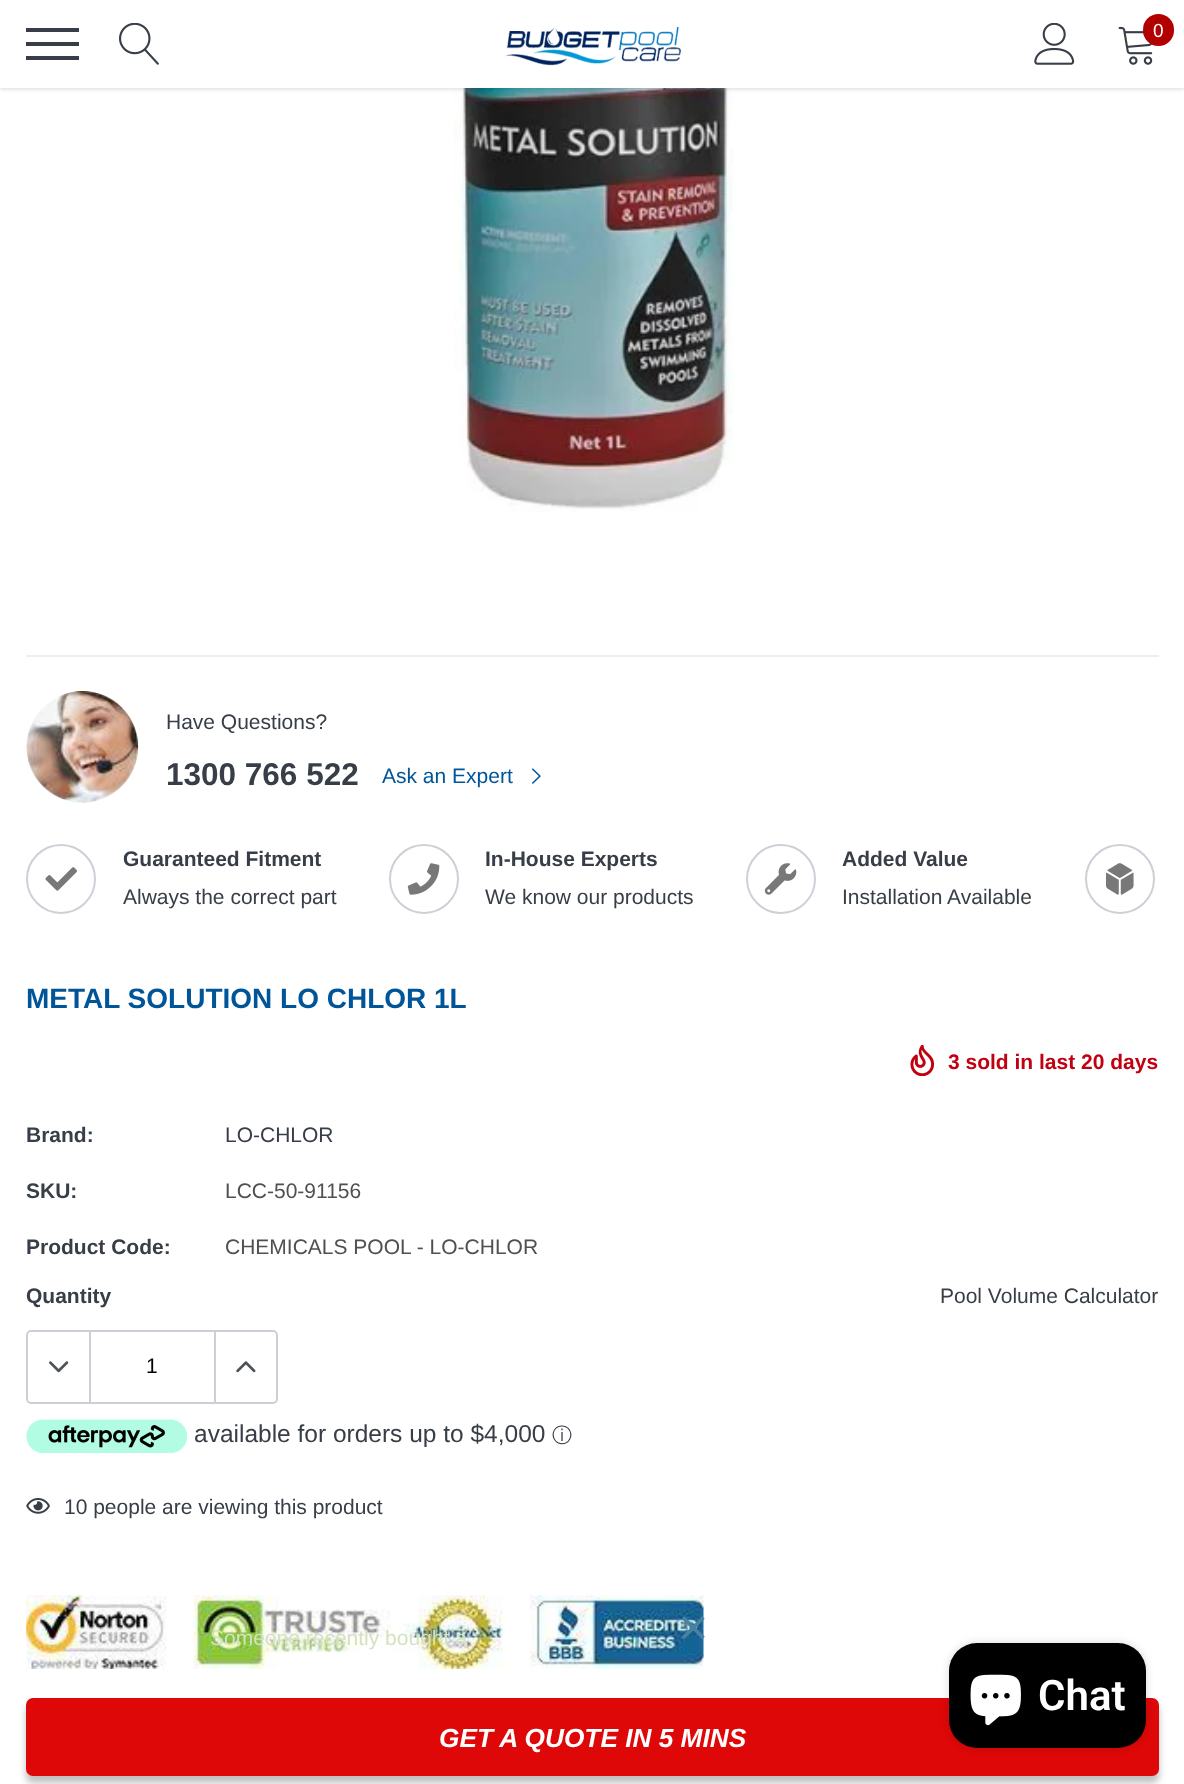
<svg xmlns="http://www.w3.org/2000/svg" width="1184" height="1784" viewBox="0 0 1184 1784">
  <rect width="100%" height="100%" fill="#fff"/>
  <image x="453" y="88" width="281" height="424" href="img/5.png"/>
  <path d="M0 2h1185v87H0z" fill="#00000026" filter="blur(2px)"/>
  <path d="M0 0h1184v88H0z" fill="#fff"/>
  <path d="M26 42h53v4H26z" fill="#383e47"/>
  <path d="M26 28h53v4H26z" fill="#383e47"/>
  <path d="M26 56h53v4H26z" fill="#383e47"/>
  <image x="119" y="23" width="40" height="42" href="img/1.png"/>
  <image x="504" y="27" width="177" height="39" href="img/2.png"/>
  <image x="1034" y="23" width="41" height="42" href="img/3.png"/>
  <image x="1118" y="26" width="35" height="39" href="img/4.png"/>
  <rect x="1143" y="14" width="31" height="32" rx="15.5" fill="#b20000"/>
  <path d="M26 655h1133v2H26z" fill="#eee"/>
  <image x="26" y="691" width="113" height="112" href="img/6.png"/>
  <image x="531" y="768" width="10" height="16" href="img/7.png"/>
  <circle cx="61" cy="879" r="34" fill="none" stroke="#cdd0d7" stroke-width="2"/>
  <image x="45" y="867" width="32" height="24" href="img/8.png"/>
  <circle cx="424" cy="879" r="34" fill="none" stroke="#cdd0d7" stroke-width="2"/>
  <image x="407" y="863" width="33" height="32" href="img/9.png"/>
  <circle cx="781" cy="879" r="34" fill="none" stroke="#cdd0d7" stroke-width="2"/>
  <image x="764" y="863" width="33" height="32" href="img/10.png"/>
  <circle cx="1120" cy="879" r="34" fill="none" stroke="#cdd0d7" stroke-width="2"/>
  <image x="1106" y="863" width="28" height="32" href="img/11.png"/>
  <image x="910" y="1045" width="25" height="31" href="img/12.png"/>
  <rect x="27" y="1331" width="250" height="72" rx="4" fill="none" stroke="#cccfd6" stroke-width="2"/>
  <path d="M89 1332h2v70H89z" fill="#cccfd6"/>
  <image x="49" y="1361" width="20" height="12" href="img/13.png"/>
  <path d="M214 1332h2v70H214z" fill="#cccfd6"/>
  <image x="236" y="1361" width="20" height="12" href="img/14.png"/>
  <image x="26" y="1419" width="161" height="35" href="img/15.png"/>
  <image x="26" y="1498" width="24" height="16" href="img/16.png"/>
  <image x="26" y="1595" width="678" height="74" href="img/17.png"/>
  <rect x="26" y="1705" width="1133" height="78" rx="7" fill="#00000040" filter="blur(3.5px)"/>
  <rect x="26" y="1698" width="1133" height="78" rx="7" fill="#de0808"/>
  <rect x="949" y="1643" width="197" height="105" rx="28" fill="#00000026" filter="blur(4.5px)"/>
  <rect x="949" y="1643" width="197" height="105" rx="28" fill="#000"/>
  <image x="970" y="1674" width="51" height="52" href="img/18.png"/>
  <text x="1153" y="37" font-family="Arimo" font-size="19" fill="#fff">0</text>
  <text x="166" y="729" font-family="Arimo" font-size="21" fill="#383e47">Have Questions?</text>
  <text x="166" y="785" font-family="Arimo" font-size="31.5" font-weight="bold" fill="#383e47">1300 766 522</text>
  <text x="382" y="783" font-family="Arimo" font-size="21" fill="#059">Ask an Expert</text>
  <text x="123" y="866" font-family="Arimo" font-size="21" font-weight="bold" fill="#383e47">Guaranteed Fitment</text>
  <text x="123" y="904" font-family="Arimo" font-size="21" fill="#383e47">Always the correct part</text>
  <text x="485" y="866" font-family="Arimo" font-size="21" font-weight="bold" fill="#383e47">In-House Experts</text>
  <text x="485" y="904" font-family="Arimo" font-size="21" fill="#383e47">We know our products</text>
  <text x="842" y="866" font-family="Arimo" font-size="21" font-weight="bold" fill="#383e47">Added Value</text>
  <text x="842" y="904" font-family="Arimo" font-size="21" fill="#383e47">Installation Available</text>
  <text x="26" y="1008" font-family="Arimo" font-size="28" font-weight="bold" fill="#059">METAL SOLUTION LO CHLOR 1L</text>
  <text x="948" y="1069" font-family="Arimo" font-size="21" font-weight="bold" fill="#c10011">3 sold in last 20 days</text>
  <text x="26" y="1142" font-family="Arimo" font-size="21" font-weight="bold" fill="#383e47">Brand:</text>
  <text x="225" y="1142" font-family="Arimo" font-size="21" fill="#383e47">LO-CHLOR</text>
  <text x="26" y="1198" font-family="Arimo" font-size="21" font-weight="bold" fill="#383e47">SKU:</text>
  <text x="225" y="1198" font-family="Arimo" font-size="21" fill="#505050">LCC-50-91156</text>
  <text x="26" y="1254" font-family="Arimo" font-size="21" font-weight="bold" fill="#383e47">Product Code:</text>
  <text x="225" y="1254" font-family="Arimo" font-size="21" fill="#505050">CHEMICALS POOL - LO-CHLOR</text>
  <text x="26" y="1303" font-family="Arimo" font-size="21" font-weight="bold" fill="#383e47">Quantity</text>
  <text x="146" y="1373" font-family="Arimo" font-size="21" fill="#000">1</text>
  <text x="940" y="1303" font-family="Arimo" font-size="21" fill="#383e47">Pool Volume Calculator</text>
  <text x="194" y="1442" font-family="Arimo" font-size="24.5" fill="#383e47">available for orders up to $4,000</text>
  <text x="552" y="1442" font-family="WenQuanYi Zen Hei" font-size="20" font-weight="500" fill="#383e47">ⓘ</text>
  <text x="64" y="1514" font-family="Arimo" font-size="21" fill="#383e47">10 people are viewing this product</text>
  <text x="439" y="1747" font-family="Arimo" font-size="26.25" font-weight="bold" font-style="italic" fill="#fff">GET A QUOTE IN 5 MINS</text>
  <text x="210" y="1645" font-family="Arimo" font-size="21" fill="#d4e2c0">Someone recently bought a</text>
  <text x="678" y="1645" font-family="Arimo" font-size="52" fill="#4782a2">×</text>
  <text x="1038" y="1710" font-family="Roboto" font-size="42" font-weight="600" fill="#fff">Chat</text>
</svg>
